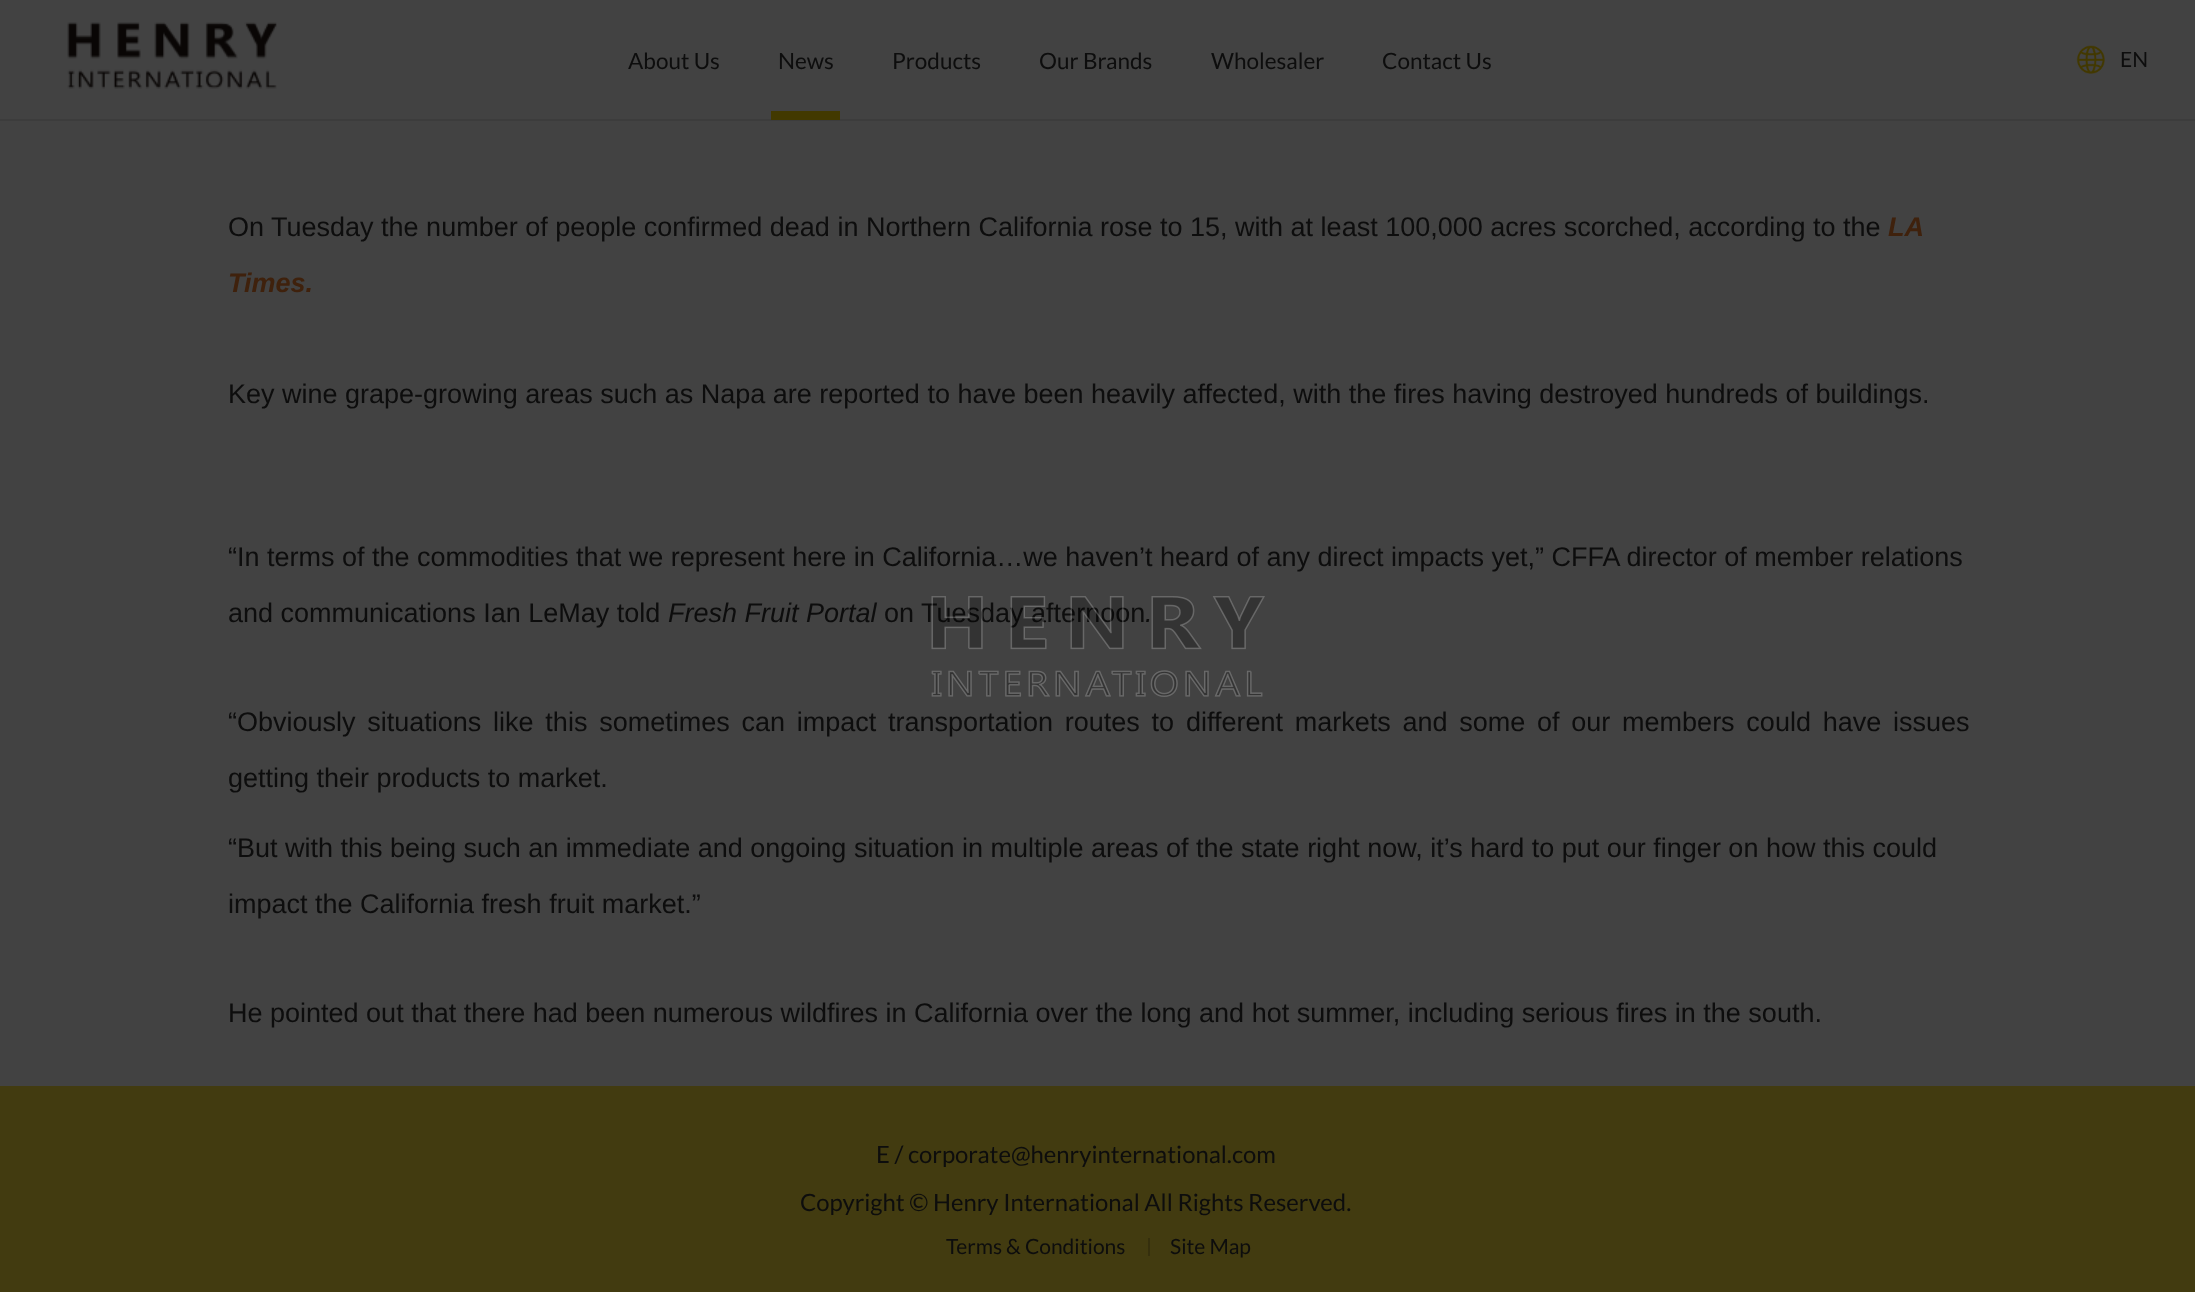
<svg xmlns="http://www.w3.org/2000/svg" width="2195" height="1292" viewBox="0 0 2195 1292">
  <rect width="100%" height="100%" fill="#424242"/>
  <path d="M0 119h2195v2H0z" fill="#3c3c3c"/>
  <image x="67" y="22" width="210" height="67" href="img/1.png"/>
  <path d="M771 111h69v9H771z" fill="#423900"/>
  <image x="2076" y="45" width="29" height="29" href="img/2.png"/>
  <path d="M0 1086h2195v206H0z" fill="#423b10"/>
  <path d="M1148 1238h2v18H1148z" fill="#352f0d"/>
  <g font-family="Lato" font-size="22.5" fill="#0d0d0d">
    <text x="628" y="69">About Us</text>
    <text x="778" y="69">News</text>
    <text x="892" y="69">Products</text>
    <text x="1039" y="69">Our Brands</text>
    <text x="1211" y="69">Wholesaler</text>
    <text x="1382" y="69">Contact Us</text>
  </g>
  <text x="2120" y="67" font-family="Lato" font-size="21" fill="#0d0d0d">EN</text>
  <text x="228" y="236" font-family="Liberation Sans" font-size="27" fill="#0d0d0d">On Tuesday the number of people confirmed dead in Northern California rose to 15, with at least 100,000 acres scorched, according to the</text>
  <g font-family="Liberation Sans" font-size="27" font-weight="bold" font-style="italic" fill="#3f210c">
    <text x="1888" y="236">LA</text>
    <text x="228" y="292">Times.</text>
  </g>
  <g font-family="Liberation Sans" font-size="27" fill="#0d0d0d">
    <text x="228" y="403">Key wine grape-growing areas such as Napa are reported to have been heavily affected, with the fires having destroyed hundreds of buildings.</text>
    <text x="228" y="566">“In terms of the commodities that we represent here in California…we haven’t heard of any direct impacts yet,” CFFA director of member relations</text>
    <text x="228" y="622">and communications Ian LeMay told</text>
  </g>
  <text x="668" y="622" font-family="Liberation Sans" font-size="27" font-style="italic" fill="#0d0d0d">Fresh Fruit Portal</text>
  <text x="884" y="622" font-family="Liberation Sans" font-size="27" fill="#0d0d0d">on Tuesday afternoon</text>
  <text x="1145" y="622" font-family="Liberation Sans" font-size="27" font-style="italic" fill="#0d0d0d">.</text>
  <g font-family="Liberation Sans" font-size="27" fill="#0d0d0d">
    <text x="228" y="731" word-spacing="4.25">“Obviously situations like this sometimes can impact transportation routes to different markets and some of our members could have issues</text>
    <text x="228" y="787">getting their products to market.</text>
    <text x="228" y="857">“But with this being such an immediate and ongoing situation in multiple areas of the state right now, it’s hard to put our finger on how this could</text>
    <text x="228" y="913">impact the California fresh fruit market.”</text>
    <text x="228" y="1022">He pointed out that there had been numerous wildfires in California over the long and hot summer, including serious fires in the south.</text>
  </g>
  <image x="931" y="596" width="334" height="101" href="img/3.png"/>
  <g font-family="Lato" font-size="23.85" fill="#0d0d0d">
    <text x="876" y="1163">E / corporate@henryinternational.com</text>
    <text x="800" y="1211">Copyright © Henry International All Rights Reserved.</text>
  </g>
  <g font-family="Lato" font-size="21" fill="#0d0d0d">
    <text x="946" y="1254">Terms &amp; Conditions</text>
    <text x="1170" y="1254">Site Map</text>
  </g>
</svg>
